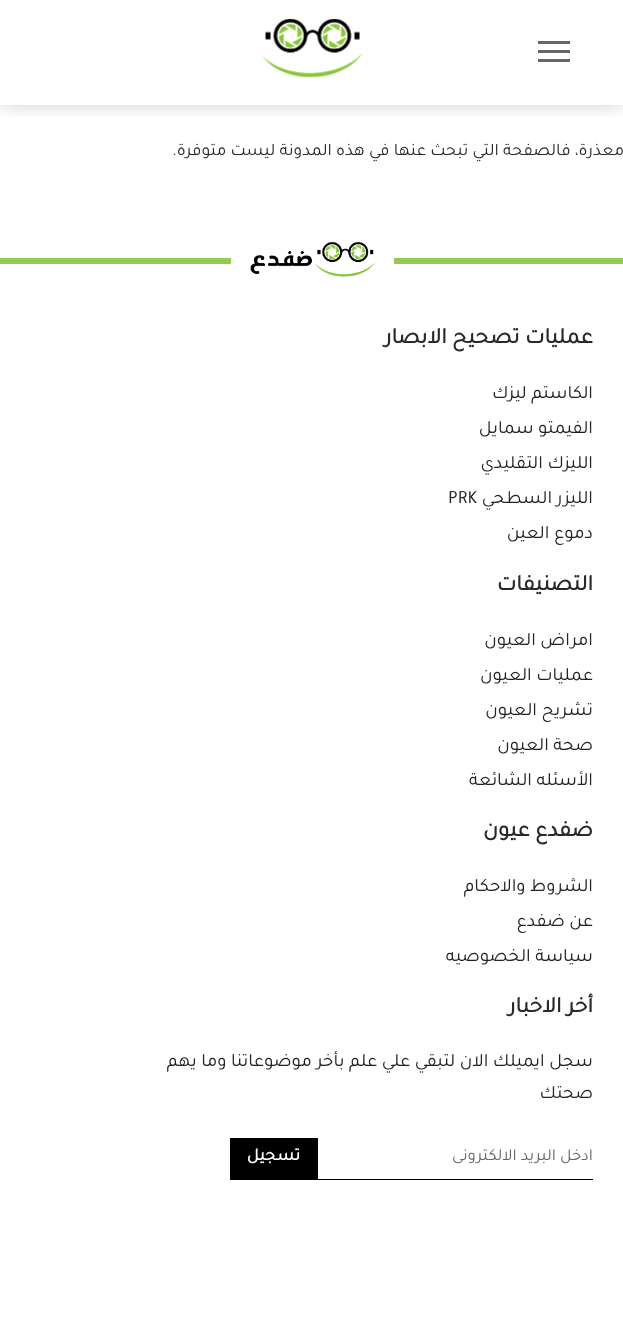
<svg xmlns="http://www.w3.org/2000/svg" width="623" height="1330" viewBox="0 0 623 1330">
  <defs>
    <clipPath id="clip1"><path d="M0 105h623v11H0z"/></clipPath>
  </defs>
  <rect width="100%" height="100%" fill="#fff"/>
  <g clip-path="url(#clip1)">
    <path d="M-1 -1h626v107H-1z" fill="#00000029" filter="blur(9px)"/>
  </g>
  <path d="M538 41h32v3H538z" fill="#666"/>
  <path d="M538 50h32v3H538z" fill="#666"/>
  <path d="M538 59h32v3H538z" fill="#666"/>
  <image x="262" y="18" width="101" height="60" href="img/1.png"/>
  <path d="M0 258h623v6H0z" fill="#95ca50"/>
  <path d="M231 258h163v6H231z" fill="#fff"/>
  <image x="250" y="241" width="125" height="36" href="img/2.png"/>
  <path d="M318 1179h275v1H318z" fill="#000"/>
  <path d="M230 1138h88v42H230z" fill="#000"/>
  <text x="624" y="155" font-family="Tajawal" font-size="17.5" direction="rtl" fill="#292929">معذرة، فالصفحة التي تبحث عنها في هذه المدونة ليست متوفرة.</text>
  <text x="593" y="343" font-family="Tajawal" font-size="22.5" font-weight="bold" direction="rtl" fill="#292929">عمليات تصحيح الابصار</text>
  <g font-family="Tajawal" font-size="18.75" direction="rtl" fill="#222">
    <text x="593" y="398">الكاستم ليزك</text>
    <text x="593" y="433">الفيمتو سمايل</text>
    <text x="593" y="468">الليزك التقليدي</text>
    <text x="593" y="503">الليزر السطحي</text>
  </g>
  <text x="448" y="503" font-family="Tajawal" font-size="18.75" fill="#222">PRK</text>
  <text x="593" y="538" font-family="Tajawal" font-size="18.75" direction="rtl" fill="#222">دموع العين</text>
  <text x="593" y="590" font-family="Tajawal" font-size="22.5" font-weight="bold" direction="rtl" fill="#292929">التصنيفات</text>
  <g font-family="Tajawal" font-size="18.75" direction="rtl" fill="#222">
    <text x="593" y="645">امراض العيون</text>
    <text x="593" y="680">عمليات العيون</text>
    <text x="593" y="715">تشريح العيون</text>
    <text x="593" y="750">صحة العيون</text>
    <text x="593" y="785">الأسئله الشائعة</text>
  </g>
  <text x="593" y="836" font-family="Tajawal" font-size="22.5" font-weight="bold" direction="rtl" fill="#292929">ضفدع عيون</text>
  <g font-family="Tajawal" font-size="18.75" direction="rtl" fill="#222">
    <text x="593" y="891">الشروط والاحكام</text>
    <text x="593" y="926">عن ضفدع</text>
    <text x="593" y="961">سياسة الخصوصيه</text>
  </g>
  <text x="593" y="1012" font-family="Tajawal" font-size="22.5" font-weight="bold" direction="rtl" fill="#292929">أخر الاخبار</text>
  <g font-family="Tajawal" font-size="18.75" direction="rtl" fill="#222">
    <text x="593" y="1066">سجل ايميلك الان لتبقي علي علم بأخر موضوعاتنا وما يهم</text>
    <text x="593" y="1098">صحتك</text>
  </g>
  <text x="593" y="1160" font-family="Tajawal" font-size="16.75" direction="rtl" fill="#666">ادخل البريد الالكترونى</text>
  <text x="300" y="1160" font-family="Tajawal" font-size="17.5" font-weight="bold" direction="rtl" fill="#fff">تسجيل</text>
</svg>
